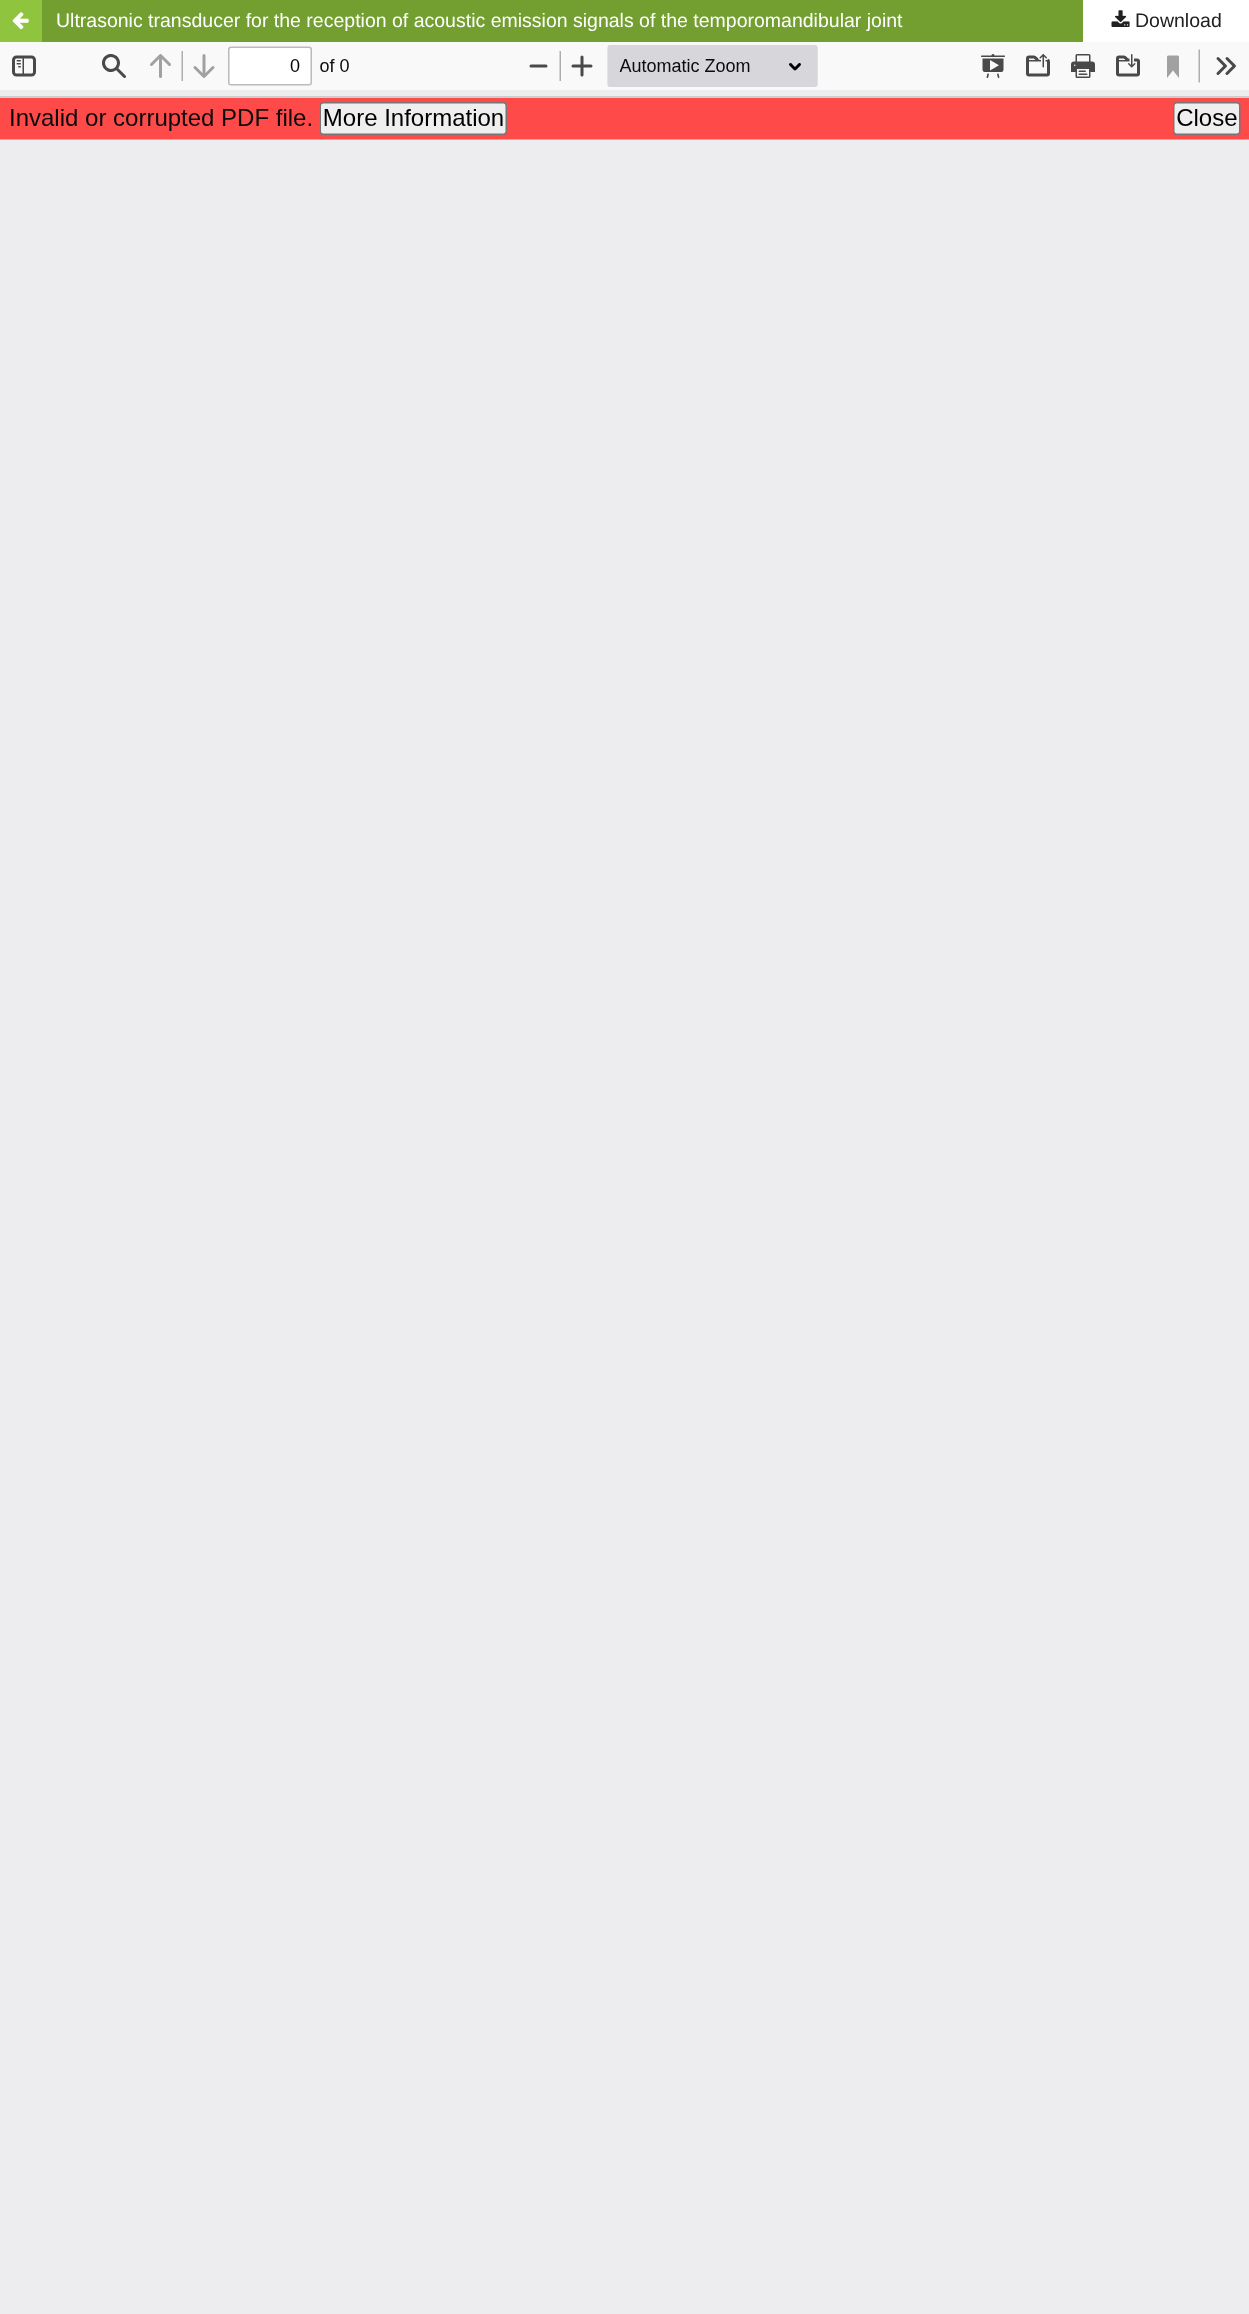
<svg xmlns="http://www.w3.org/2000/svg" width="1249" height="2314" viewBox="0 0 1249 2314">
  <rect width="100%" height="100%" fill="#fff"/>
  <path d="M42 0h1041v42H42z" fill="#739f31"/>
  <path d="M0 0h42v42H0z" fill="#8fc43f"/>
  <image x="12" y="12" width="17" height="18" href="img/1.png"/>
  <image x="1111" y="10" width="19" height="17" href="img/2.png"/>
  <image x="0" y="42" width="1249" height="2272" href="img/3.png"/>
  <text x="56" y="27" font-family="Liberation Sans" font-size="19.5" fill="#fff">Ultrasonic transducer for the reception of acoustic emission signals of the temporomandibular joint</text>
  <text x="1135" y="27" font-family="Liberation Sans" font-size="19.5" fill="#212121">Download</text>
</svg>
